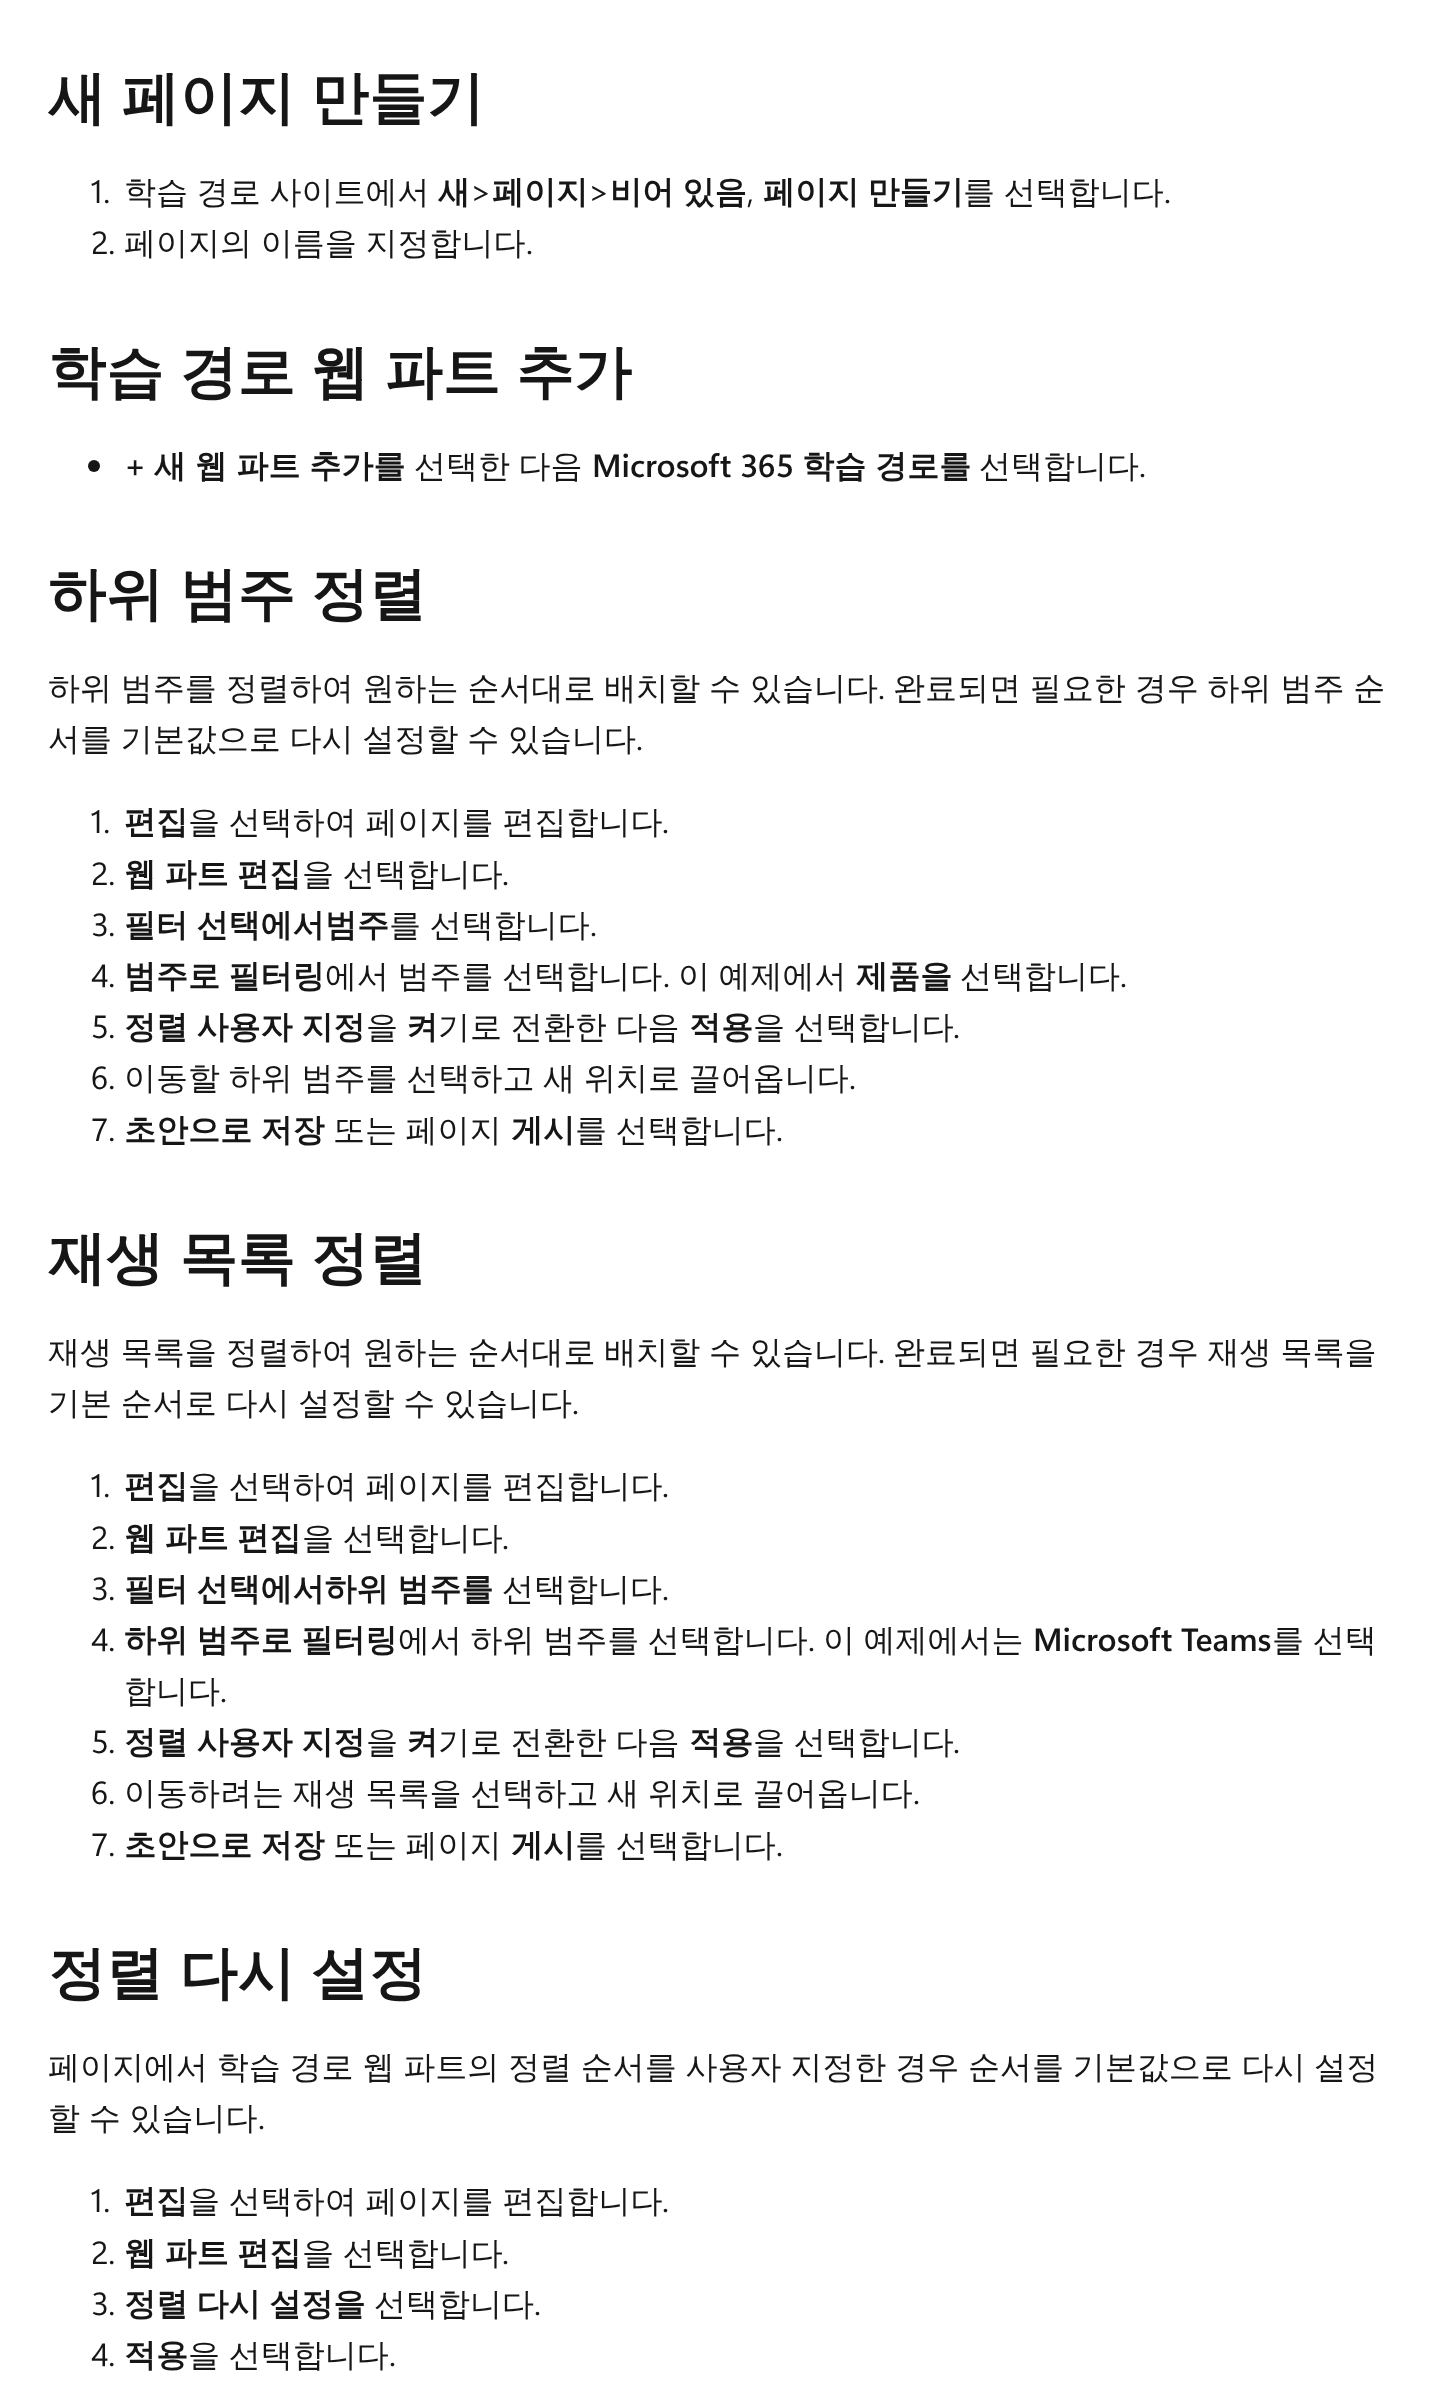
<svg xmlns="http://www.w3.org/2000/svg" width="1449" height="2403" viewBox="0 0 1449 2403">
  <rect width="100%" height="100%" fill="#fff"/>
  <circle cx="94" cy="466" r="6" fill="#161616"/>
  <text x="48" y="118" word-spacing="-1.5" font-family="WenQuanYi Zen Hei" font-size="57.8" font-weight="bold" fill="#161616">새 페이지 만들기</text>
  <text x="91" y="203" font-family="Segoe UI" font-size="32" fill="#161616">1.</text>
  <text x="124" y="203" word-spacing="-0.8" font-family="WenQuanYi Zen Hei" font-size="32" font-weight="500" fill="#161616">학습 경로 사이트에서</text>
  <text x="438" y="203" font-family="WenQuanYi Zen Hei" font-size="32" font-weight="bold" fill="#161616">새</text>
  <text x="470" y="203" font-family="Segoe UI" font-size="32" fill="#161616">&gt;</text>
  <text x="492" y="203" font-family="WenQuanYi Zen Hei" font-size="32" font-weight="bold" fill="#161616">페이지</text>
  <text x="588" y="203" font-family="Segoe UI" font-size="32" fill="#161616">&gt;</text>
  <g font-family="WenQuanYi Zen Hei" font-size="32" font-weight="bold" fill="#161616">
    <text x="610" y="203" word-spacing="-1">비어 있음</text>
    <text x="763" y="203" word-spacing="-1">페이지 만들기</text>
  </g>
  <text x="963" y="203" word-spacing="-0.8" font-family="WenQuanYi Zen Hei" font-size="32" font-weight="500" fill="#161616">를 선택합니다</text>
  <g font-family="Segoe UI" font-size="32" fill="#161616">
    <text x="747" y="203">,</text>
    <text x="1164" y="203">.</text>
    <text x="91" y="254">2.</text>
  </g>
  <text x="124" y="254" word-spacing="-0.8" font-family="WenQuanYi Zen Hei" font-size="32" font-weight="500" fill="#161616">페이지의 이름을 지정합니다</text>
  <text x="526" y="254" font-family="Segoe UI" font-size="32" fill="#161616">.</text>
  <text x="48" y="392" word-spacing="-1.5" font-family="WenQuanYi Zen Hei" font-size="57.8" font-weight="bold" fill="#161616">학습 경로 웹 파트 추가</text>
  <text x="124" y="477" font-family="Segoe UI" font-size="32" font-weight="600" fill="#161616">+</text>
  <text x="154" y="477" word-spacing="-0.5" font-family="WenQuanYi Zen Hei" font-size="32" font-weight="bold" fill="#161616">새 웹 파트 추가를</text>
  <text x="414" y="477" word-spacing="-1" font-family="WenQuanYi Zen Hei" font-size="32" font-weight="500" fill="#161616">선택한 다음</text>
  <text x="592" y="477" font-family="Segoe UI" font-size="32" font-weight="600" fill="#161616">Microsoft 365</text>
  <g font-family="WenQuanYi Zen Hei" font-size="32" font-weight="bold" fill="#161616">
    <text x="802" y="477">학습</text>
    <text x="875" y="477">경로를</text>
  </g>
  <text x="979" y="477" font-family="WenQuanYi Zen Hei" font-size="32" font-weight="500" fill="#161616">선택합니다</text>
  <text x="1139" y="477" font-family="Segoe UI" font-size="32" fill="#161616">.</text>
  <text x="48" y="614" word-spacing="-1.5" font-family="WenQuanYi Zen Hei" font-size="57.8" font-weight="bold" fill="#161616">하위 범주 정렬</text>
  <text x="48" y="699" word-spacing="-0.75" font-family="WenQuanYi Zen Hei" font-size="32" font-weight="500" fill="#161616">하위 범주를 정렬하여 원하는 순서대로 배치할 수 있습니다</text>
  <text x="878" y="699" font-family="Segoe UI" font-size="32" fill="#161616">.</text>
  <g font-family="WenQuanYi Zen Hei" font-size="32" font-weight="500" fill="#161616">
    <text x="893" y="699" word-spacing="-0.75">완료되면 필요한 경우 하위 범주 순</text>
    <text x="48" y="750" word-spacing="-0.8">서를 기본값으로 다시 설정할 수 있습니다</text>
  </g>
  <g font-family="Segoe UI" font-size="32" fill="#161616">
    <text x="636" y="750">.</text>
    <text x="91" y="833">1.</text>
  </g>
  <text x="124" y="833" font-family="WenQuanYi Zen Hei" font-size="32" font-weight="bold" fill="#161616">편집</text>
  <text x="188" y="833" word-spacing="-0.8" font-family="WenQuanYi Zen Hei" font-size="32" font-weight="500" fill="#161616">을 선택하여 페이지를 편집합니다</text>
  <g font-family="Segoe UI" font-size="32" fill="#161616">
    <text x="662" y="833">.</text>
    <text x="91" y="885">2.</text>
  </g>
  <text x="124" y="885" word-spacing="-1" font-family="WenQuanYi Zen Hei" font-size="32" font-weight="bold" fill="#161616">웹 파트 편집</text>
  <text x="302" y="885" word-spacing="-0.8" font-family="WenQuanYi Zen Hei" font-size="32" font-weight="500" fill="#161616">을 선택합니다</text>
  <g font-family="Segoe UI" font-size="32" fill="#161616">
    <text x="502" y="885">.</text>
    <text x="91" y="936">3.</text>
  </g>
  <g font-family="WenQuanYi Zen Hei" font-size="32" font-weight="bold" fill="#161616">
    <text x="124" y="936" word-spacing="-1">필터 선택에서</text>
    <text x="325" y="936">범주</text>
  </g>
  <text x="389" y="936" word-spacing="-0.8" font-family="WenQuanYi Zen Hei" font-size="32" font-weight="500" fill="#161616">를 선택합니다</text>
  <g font-family="Segoe UI" font-size="32" fill="#161616">
    <text x="590" y="936">.</text>
    <text x="91" y="987">4.</text>
  </g>
  <text x="124" y="987" word-spacing="-1" font-family="WenQuanYi Zen Hei" font-size="32" font-weight="bold" fill="#161616">범주로 필터링</text>
  <text x="325" y="987" word-spacing="-1" font-family="WenQuanYi Zen Hei" font-size="32" font-weight="500" fill="#161616">에서 범주를 선택합니다</text>
  <text x="663" y="987" font-family="Segoe UI" font-size="32" fill="#161616">.</text>
  <text x="678" y="987" word-spacing="-1" font-family="WenQuanYi Zen Hei" font-size="32" font-weight="500" fill="#161616">이 예제에서</text>
  <text x="856" y="987" font-family="WenQuanYi Zen Hei" font-size="32" font-weight="bold" fill="#161616">제품을</text>
  <text x="960" y="987" font-family="WenQuanYi Zen Hei" font-size="32" font-weight="500" fill="#161616">선택합니다</text>
  <g font-family="Segoe UI" font-size="32" fill="#161616">
    <text x="1120" y="987">.</text>
    <text x="91" y="1038">5.</text>
  </g>
  <text x="124" y="1038" word-spacing="-1" font-family="WenQuanYi Zen Hei" font-size="32" font-weight="bold" fill="#161616">정렬 사용자 지정</text>
  <text x="366" y="1038" font-family="WenQuanYi Zen Hei" font-size="32" font-weight="500" fill="#161616">을</text>
  <text x="406" y="1038" font-family="WenQuanYi Zen Hei" font-size="32" font-weight="bold" fill="#161616">켜</text>
  <text x="438" y="1038" word-spacing="-0.8" font-family="WenQuanYi Zen Hei" font-size="32" font-weight="500" fill="#161616">기로 전환한 다음</text>
  <text x="689" y="1038" font-family="WenQuanYi Zen Hei" font-size="32" font-weight="bold" fill="#161616">적용</text>
  <text x="753" y="1038" word-spacing="-0.8" font-family="WenQuanYi Zen Hei" font-size="32" font-weight="500" fill="#161616">을 선택합니다</text>
  <g font-family="Segoe UI" font-size="32" fill="#161616">
    <text x="953" y="1038">.</text>
    <text x="91" y="1089">6.</text>
  </g>
  <text x="124" y="1089" word-spacing="-0.8" font-family="WenQuanYi Zen Hei" font-size="32" font-weight="500" fill="#161616">이동할 하위 범주를 선택하고 새 위치로 끌어옵니다</text>
  <g font-family="Segoe UI" font-size="32" fill="#161616">
    <text x="849" y="1089">.</text>
    <text x="91" y="1141">7.</text>
  </g>
  <text x="124" y="1141" word-spacing="-1" font-family="WenQuanYi Zen Hei" font-size="32" font-weight="bold" fill="#161616">초안으로 저장</text>
  <text x="333" y="1141" word-spacing="-1" font-family="WenQuanYi Zen Hei" font-size="32" font-weight="500" fill="#161616">또는 페이지</text>
  <text x="511" y="1141" font-family="WenQuanYi Zen Hei" font-size="32" font-weight="bold" fill="#161616">게시</text>
  <text x="575" y="1141" word-spacing="-0.8" font-family="WenQuanYi Zen Hei" font-size="32" font-weight="500" fill="#161616">를 선택합니다</text>
  <text x="776" y="1141" font-family="Segoe UI" font-size="32" fill="#161616">.</text>
  <text x="48" y="1278" word-spacing="-1.5" font-family="WenQuanYi Zen Hei" font-size="57.8" font-weight="bold" fill="#161616">재생 목록 정렬</text>
  <text x="48" y="1363" word-spacing="-0.75" font-family="WenQuanYi Zen Hei" font-size="32" font-weight="500" fill="#161616">재생 목록을 정렬하여 원하는 순서대로 배치할 수 있습니다</text>
  <text x="878" y="1363" font-family="Segoe UI" font-size="32" fill="#161616">.</text>
  <g font-family="WenQuanYi Zen Hei" font-size="32" font-weight="500" fill="#161616">
    <text x="893" y="1363" word-spacing="-0.75">완료되면 필요한 경우 재생 목록을</text>
    <text x="48" y="1414" word-spacing="-0.8">기본 순서로 다시 설정할 수 있습니다</text>
  </g>
  <g font-family="Segoe UI" font-size="32" fill="#161616">
    <text x="572" y="1414">.</text>
    <text x="91" y="1497">1.</text>
  </g>
  <text x="124" y="1497" font-family="WenQuanYi Zen Hei" font-size="32" font-weight="bold" fill="#161616">편집</text>
  <text x="188" y="1497" word-spacing="-0.8" font-family="WenQuanYi Zen Hei" font-size="32" font-weight="500" fill="#161616">을 선택하여 페이지를 편집합니다</text>
  <g font-family="Segoe UI" font-size="32" fill="#161616">
    <text x="662" y="1497">.</text>
    <text x="91" y="1549">2.</text>
  </g>
  <text x="124" y="1549" word-spacing="-1" font-family="WenQuanYi Zen Hei" font-size="32" font-weight="bold" fill="#161616">웹 파트 편집</text>
  <text x="302" y="1549" word-spacing="-0.8" font-family="WenQuanYi Zen Hei" font-size="32" font-weight="500" fill="#161616">을 선택합니다</text>
  <g font-family="Segoe UI" font-size="32" fill="#161616">
    <text x="502" y="1549">.</text>
    <text x="91" y="1600">3.</text>
  </g>
  <text x="124" y="1600" word-spacing="-1" font-family="WenQuanYi Zen Hei" font-size="32" font-weight="bold" fill="#161616">필터 선택에서하위 범주를</text>
  <text x="502" y="1600" font-family="WenQuanYi Zen Hei" font-size="32" font-weight="500" fill="#161616">선택합니다</text>
  <g font-family="Segoe UI" font-size="32" fill="#161616">
    <text x="662" y="1600">.</text>
    <text x="91" y="1651">4.</text>
  </g>
  <text x="124" y="1651" word-spacing="-1" font-family="WenQuanYi Zen Hei" font-size="32" font-weight="bold" fill="#161616">하위 범주로 필터링</text>
  <text x="398" y="1651" word-spacing="-1" font-family="WenQuanYi Zen Hei" font-size="32" font-weight="500" fill="#161616">에서 하위 범주를 선택합니다</text>
  <text x="808" y="1651" font-family="Segoe UI" font-size="32" fill="#161616">.</text>
  <text x="823" y="1651" word-spacing="-1" font-family="WenQuanYi Zen Hei" font-size="32" font-weight="500" fill="#161616">이 예제에서는</text>
  <text x="1033" y="1651" font-family="Segoe UI" font-size="32" font-weight="600" fill="#161616">Microsoft Teams</text>
  <g font-family="WenQuanYi Zen Hei" font-size="32" font-weight="500" fill="#161616">
    <text x="1272" y="1651" word-spacing="-0.8">를 선택</text>
    <text x="124" y="1702">합니다</text>
  </g>
  <g font-family="Segoe UI" font-size="32" fill="#161616">
    <text x="220" y="1702">.</text>
    <text x="91" y="1753">5.</text>
  </g>
  <text x="124" y="1753" word-spacing="-1" font-family="WenQuanYi Zen Hei" font-size="32" font-weight="bold" fill="#161616">정렬 사용자 지정</text>
  <text x="366" y="1753" font-family="WenQuanYi Zen Hei" font-size="32" font-weight="500" fill="#161616">을</text>
  <text x="406" y="1753" font-family="WenQuanYi Zen Hei" font-size="32" font-weight="bold" fill="#161616">켜</text>
  <text x="438" y="1753" word-spacing="-0.8" font-family="WenQuanYi Zen Hei" font-size="32" font-weight="500" fill="#161616">기로 전환한 다음</text>
  <text x="689" y="1753" font-family="WenQuanYi Zen Hei" font-size="32" font-weight="bold" fill="#161616">적용</text>
  <text x="753" y="1753" word-spacing="-0.8" font-family="WenQuanYi Zen Hei" font-size="32" font-weight="500" fill="#161616">을 선택합니다</text>
  <g font-family="Segoe UI" font-size="32" fill="#161616">
    <text x="953" y="1753">.</text>
    <text x="91" y="1804">6.</text>
  </g>
  <text x="124" y="1804" word-spacing="-0.8" font-family="WenQuanYi Zen Hei" font-size="32" font-weight="500" fill="#161616">이동하려는 재생 목록을 선택하고 새 위치로 끌어옵니다</text>
  <g font-family="Segoe UI" font-size="32" fill="#161616">
    <text x="913" y="1804">.</text>
    <text x="91" y="1856">7.</text>
  </g>
  <text x="124" y="1856" word-spacing="-1" font-family="WenQuanYi Zen Hei" font-size="32" font-weight="bold" fill="#161616">초안으로 저장</text>
  <text x="333" y="1856" word-spacing="-1" font-family="WenQuanYi Zen Hei" font-size="32" font-weight="500" fill="#161616">또는 페이지</text>
  <text x="511" y="1856" font-family="WenQuanYi Zen Hei" font-size="32" font-weight="bold" fill="#161616">게시</text>
  <text x="575" y="1856" word-spacing="-0.8" font-family="WenQuanYi Zen Hei" font-size="32" font-weight="500" fill="#161616">를 선택합니다</text>
  <text x="776" y="1856" font-family="Segoe UI" font-size="32" fill="#161616">.</text>
  <text x="48" y="1993" word-spacing="-1.5" font-family="WenQuanYi Zen Hei" font-size="57.8" font-weight="bold" fill="#161616">정렬 다시 설정</text>
  <g font-family="WenQuanYi Zen Hei" font-size="32" font-weight="500" fill="#161616">
    <text x="48" y="2078" word-spacing="-0.8">페이지에서 학습 경로 웹 파트의 정렬 순서를 사용자 지정한 경우 순서를 기본값으로 다시 설정</text>
    <text x="48" y="2129" word-spacing="-0.8">할 수 있습니다</text>
  </g>
  <g font-family="Segoe UI" font-size="32" fill="#161616">
    <text x="258" y="2129">.</text>
    <text x="91" y="2212">1.</text>
  </g>
  <text x="124" y="2212" font-family="WenQuanYi Zen Hei" font-size="32" font-weight="bold" fill="#161616">편집</text>
  <text x="188" y="2212" word-spacing="-0.8" font-family="WenQuanYi Zen Hei" font-size="32" font-weight="500" fill="#161616">을 선택하여 페이지를 편집합니다</text>
  <g font-family="Segoe UI" font-size="32" fill="#161616">
    <text x="662" y="2212">.</text>
    <text x="91" y="2264">2.</text>
  </g>
  <text x="124" y="2264" word-spacing="-1" font-family="WenQuanYi Zen Hei" font-size="32" font-weight="bold" fill="#161616">웹 파트 편집</text>
  <text x="302" y="2264" word-spacing="-0.8" font-family="WenQuanYi Zen Hei" font-size="32" font-weight="500" fill="#161616">을 선택합니다</text>
  <g font-family="Segoe UI" font-size="32" fill="#161616">
    <text x="502" y="2264">.</text>
    <text x="91" y="2315">3.</text>
  </g>
  <text x="124" y="2315" word-spacing="-1" font-family="WenQuanYi Zen Hei" font-size="32" font-weight="bold" fill="#161616">정렬 다시 설정을</text>
  <text x="374" y="2315" font-family="WenQuanYi Zen Hei" font-size="32" font-weight="500" fill="#161616">선택합니다</text>
  <g font-family="Segoe UI" font-size="32" fill="#161616">
    <text x="534" y="2315">.</text>
    <text x="91" y="2366">4.</text>
  </g>
  <text x="124" y="2366" font-family="WenQuanYi Zen Hei" font-size="32" font-weight="bold" fill="#161616">적용</text>
  <text x="188" y="2366" word-spacing="-0.8" font-family="WenQuanYi Zen Hei" font-size="32" font-weight="500" fill="#161616">을 선택합니다</text>
  <text x="389" y="2366" font-family="Segoe UI" font-size="32" fill="#161616">.</text>
</svg>
